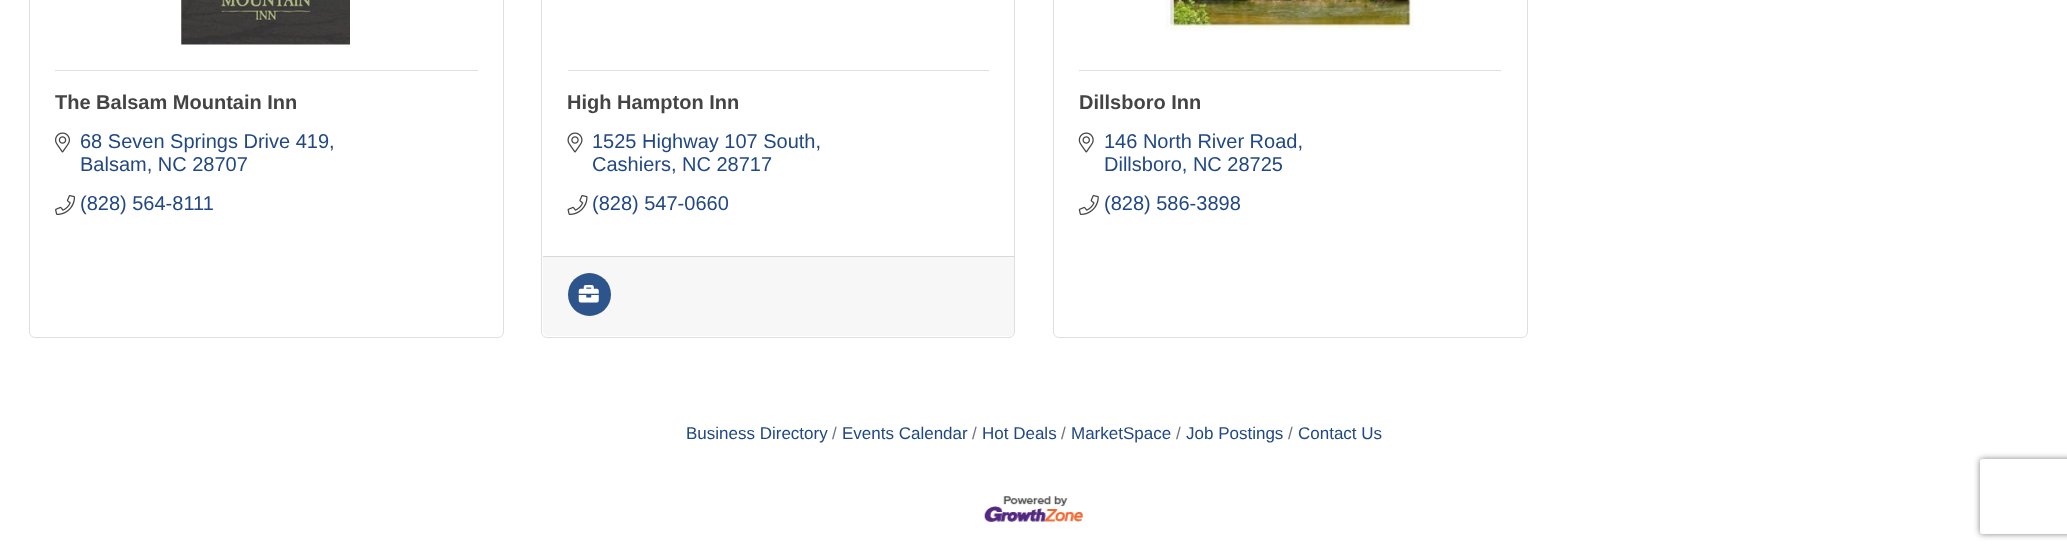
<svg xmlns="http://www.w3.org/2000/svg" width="2067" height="551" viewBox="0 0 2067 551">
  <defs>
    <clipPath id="clip1"><path d="M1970 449H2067V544H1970ZM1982.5 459H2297.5C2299 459 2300 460 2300 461.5V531.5C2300 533 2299 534 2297.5 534H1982.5C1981 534 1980 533 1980 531.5V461.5C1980 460 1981 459 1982.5 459Z" clip-rule="evenodd"/></clipPath>
  </defs>
  <rect width="100%" height="100%" fill="#fff"/>
  <rect x="29.5" y="-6.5" width="474" height="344" rx="5.5" fill="none" stroke="#dfdfdf"/>
  <image x="181" y="0" width="169" height="45" href="img/1.png"/>
  <path d="M55 70h423v1H55z" fill="#dfdfdf"/>
  <image x="55" y="132" width="15" height="21" href="img/2.png"/>
  <image x="55" y="195" width="20" height="20" href="img/3.png"/>
  <rect x="541.5" y="-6.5" width="473" height="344" rx="5.5" fill="none" stroke="#dfdfdf"/>
  <path d="M568 70h421v1H568z" fill="#dfdfdf"/>
  <image x="567" y="132" width="16" height="21" href="img/4.png"/>
  <image x="567" y="195" width="21" height="20" href="img/5.png"/>
  <path d="M543 256H1014V331C1014 334 1012 336 1009 336H548C545 336 543 334 543 331Z" fill="#f7f7f7"/>
  <path d="M543 256h471v1H543z" fill="#d8d8d8"/>
  <circle cx="589.5" cy="294.5" r="21.5" fill="#2d548b"/>
  <image x="578" y="285" width="21" height="18" href="img/6.png"/>
  <rect x="1053.5" y="-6.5" width="474" height="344" rx="5.5" fill="none" stroke="#dfdfdf"/>
  <image x="1165" y="0" width="250" height="31" href="img/7.png"/>
  <path d="M1079 70h422v1H1079z" fill="#dfdfdf"/>
  <image x="1078" y="132" width="16" height="21" href="img/8.png"/>
  <image x="1078" y="195" width="21" height="20" href="img/9.png"/>
  <image x="984" y="496" width="99" height="26" href="img/10.png"/>
  <g clip-path="url(#clip1)">
    <rect x="1980" y="459" width="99" height="75" rx="2.5" fill="#808080" filter="blur(3px)"/>
  </g>
  <text x="55" y="109" font-family="Liberation Sans" font-size="20" font-weight="bold" fill="#444">The Balsam Mountain Inn</text>
  <g font-family="Liberation Sans" font-size="20" fill="#224884">
    <text x="80" y="148">68 Seven Springs Drive 419,</text>
    <text x="80" y="171">Balsam, NC 28707</text>
    <text x="80" y="210">(828) 564-8111</text>
  </g>
  <text x="567" y="109" font-family="Liberation Sans" font-size="20" font-weight="bold" fill="#444">High Hampton Inn</text>
  <g font-family="Liberation Sans" font-size="20" fill="#224884">
    <text x="592" y="148">1525 Highway 107 South,</text>
    <text x="592" y="171">Cashiers, NC 28717</text>
    <text x="592" y="210">(828) 547-0660</text>
  </g>
  <text x="1079" y="109" font-family="Liberation Sans" font-size="20" font-weight="bold" fill="#444">Dillsboro Inn</text>
  <g font-family="Liberation Sans" font-size="20" fill="#224884">
    <text x="1104" y="148">146 North River Road,</text>
    <text x="1104" y="171">Dillsboro, NC 28725</text>
    <text x="1104" y="210">(828) 586-3898</text>
  </g>
  <text x="686" y="439" font-family="Liberation Sans" font-size="17" fill="#224884">Business Directory</text>
  <text x="832" y="439" font-family="Liberation Sans" font-size="17" fill="#6c757d">/</text>
  <text x="842" y="439" font-family="Liberation Sans" font-size="17" fill="#224884">Events Calendar</text>
  <text x="972" y="439" font-family="Liberation Sans" font-size="17" fill="#6c757d">/</text>
  <text x="982" y="439" font-family="Liberation Sans" font-size="17" fill="#224884">Hot Deals</text>
  <text x="1061" y="439" font-family="Liberation Sans" font-size="17" fill="#6c757d">/</text>
  <text x="1071" y="439" font-family="Liberation Sans" font-size="17" fill="#224884">MarketSpace</text>
  <text x="1176" y="439" font-family="Liberation Sans" font-size="17" fill="#6c757d">/</text>
  <text x="1186" y="439" font-family="Liberation Sans" font-size="17" fill="#224884">Job Postings</text>
  <text x="1288" y="439" font-family="Liberation Sans" font-size="17" fill="#6c757d">/</text>
  <text x="1298" y="439" font-family="Liberation Sans" font-size="17" fill="#224884">Contact Us</text>
</svg>
